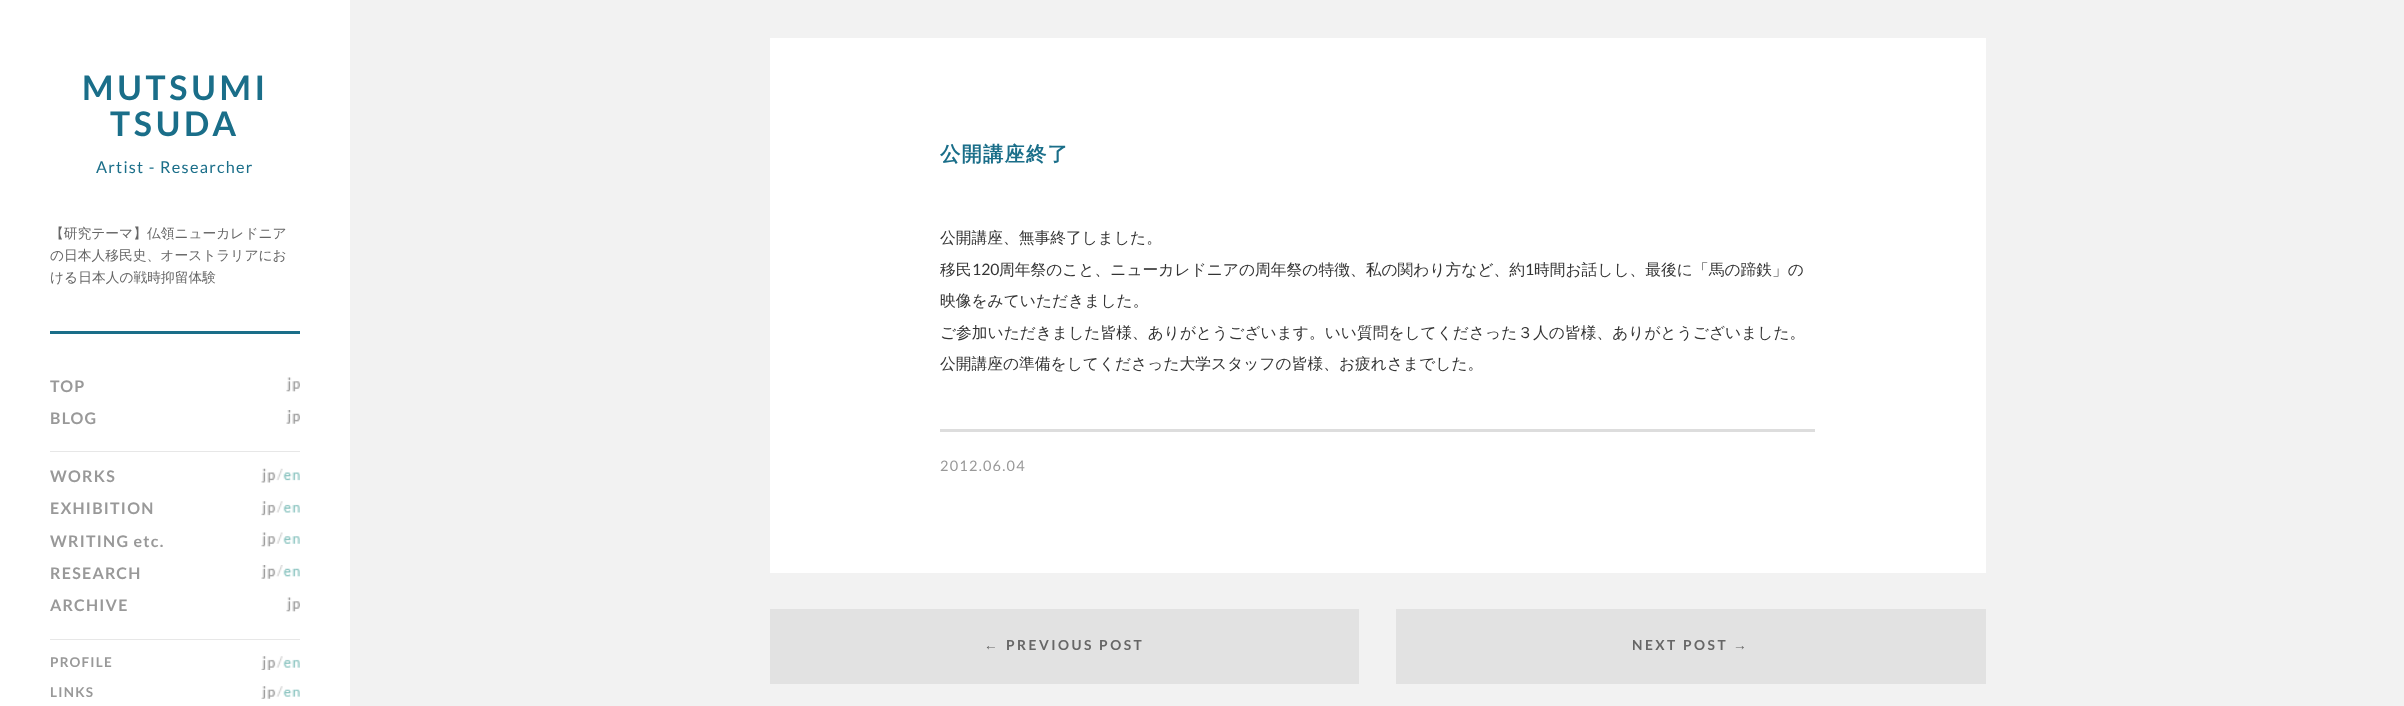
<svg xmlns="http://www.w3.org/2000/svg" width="2404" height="706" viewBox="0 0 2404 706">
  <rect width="100%" height="100%" fill="#f2f2f2"/>
  <path d="M0 0h350v706H0z" fill="#fff"/>
  <path d="M50 331h250v3H50z" fill="#1a6e89"/>
  <image x="286" y="377" width="14" height="15" href="img/1.png"/>
  <image x="286" y="410" width="14" height="14" href="img/2.png"/>
  <path d="M50 451h250v1H50z" fill="#e7e7e7"/>
  <image x="261" y="468" width="39" height="15" href="img/3.png"/>
  <image x="261" y="501" width="39" height="15" href="img/4.png"/>
  <image x="261" y="532" width="39" height="15" href="img/5.png"/>
  <image x="261" y="565" width="39" height="14" href="img/6.png"/>
  <image x="286" y="597" width="14" height="15" href="img/1.png"/>
  <path d="M50 639h250v1H50z" fill="#e7e7e7"/>
  <image x="261" y="656" width="39" height="14" href="img/7.png"/>
  <image x="261" y="686" width="39" height="13" href="img/8.png"/>
  <path d="M770 38h1216v535H770z" fill="#fff"/>
  <path d="M940 429h875v3H940z" fill="#ddd"/>
  <path d="M770 609h589v75H770z" fill="#e2e2e2"/>
  <path d="M1396 609h590v75H1396z" fill="#e2e2e2"/>
  <g font-family="Lato" font-size="33.75" font-weight="bold" letter-spacing="3.75" fill="#1a6e89">
    <text x="82" y="100">MUTSUMI</text>
    <text x="110" y="136">TSUDA</text>
  </g>
  <text x="96" y="173" font-family="Lato" font-size="16.25" letter-spacing="1.25" fill="#1a6e89">Artist - Researcher</text>
  <g font-family="WenQuanYi Zen Hei" font-size="13.75" font-weight="500" fill="#666">
    <text x="50" y="238">【研究テーマ】仏領ニューカレドニア</text>
    <text x="50" y="260">の日本人移民史、オーストラリアにお</text>
    <text x="50" y="282">ける日本人の戦時抑留体験</text>
  </g>
  <g font-family="Lato" font-size="16" font-weight="bold" letter-spacing="1.25" fill="#999">
    <text x="50" y="392">TOP</text>
    <text x="50" y="424">BLOG</text>
    <text x="50" y="482">WORKS</text>
    <text x="50" y="514">EXHIBITION</text>
    <text x="50" y="547">WRITING etc.</text>
    <text x="50" y="579">RESEARCH</text>
    <text x="50" y="611">ARCHIVE</text>
  </g>
  <g font-family="Lato" font-size="13.5" font-weight="bold" letter-spacing="1.25" fill="#999">
    <text x="50" y="667">PROFILE</text>
    <text x="50" y="697">LINKS</text>
  </g>
  <text x="940" y="161" font-family="WenQuanYi Zen Hei" font-size="20.25" font-weight="bold" letter-spacing="1.25" fill="#1a6e89">公開講座終了</text>
  <g font-family="WenQuanYi Zen Hei" font-size="15.75" font-weight="500" fill="#333">
    <text x="940" y="243">公開講座、無事終了しました。</text>
    <text x="940" y="275">移民</text>
  </g>
  <text x="972" y="275" font-family="Lato" font-size="15.75" fill="#333">120</text>
  <text x="999" y="275" font-family="WenQuanYi Zen Hei" font-size="15.75" font-weight="500" fill="#333">周年祭のこと、ニューカレドニアの周年祭の特徴、私の関わり方など、約</text>
  <text x="1525" y="275" font-family="Lato" font-size="15.75" fill="#333">1</text>
  <g font-family="WenQuanYi Zen Hei" font-size="15.75" font-weight="500" fill="#333">
    <text x="1534" y="275">時間お話しし、最後に「馬の蹄鉄」の</text>
    <text x="940" y="306">映像をみていただきました。</text>
    <text x="940" y="338">ご参加いただきました皆様、ありがとうございます。いい質問をしてくださった３人の皆様、ありがとうございました。</text>
    <text x="940" y="369">公開講座の準備をしてくださった大学スタッフの皆様、お疲れさまでした。</text>
  </g>
  <text x="940" y="471" font-family="Lato" font-size="14.5" letter-spacing="1.25" fill="#999">2012.06.04</text>
  <text x="984" y="650" font-family="Liberation Sans" font-size="13.75" font-weight="bold" letter-spacing="2.5" fill="#666">←</text>
  <g font-family="Lato" font-size="13.75" font-weight="bold" letter-spacing="2.5" fill="#666">
    <text x="1006" y="650">PREVIOUS POST</text>
    <text x="1632" y="650">NEXT POST</text>
  </g>
  <text x="1733" y="650" font-family="Liberation Sans" font-size="13.75" font-weight="bold" letter-spacing="2.5" fill="#666">→</text>
</svg>
